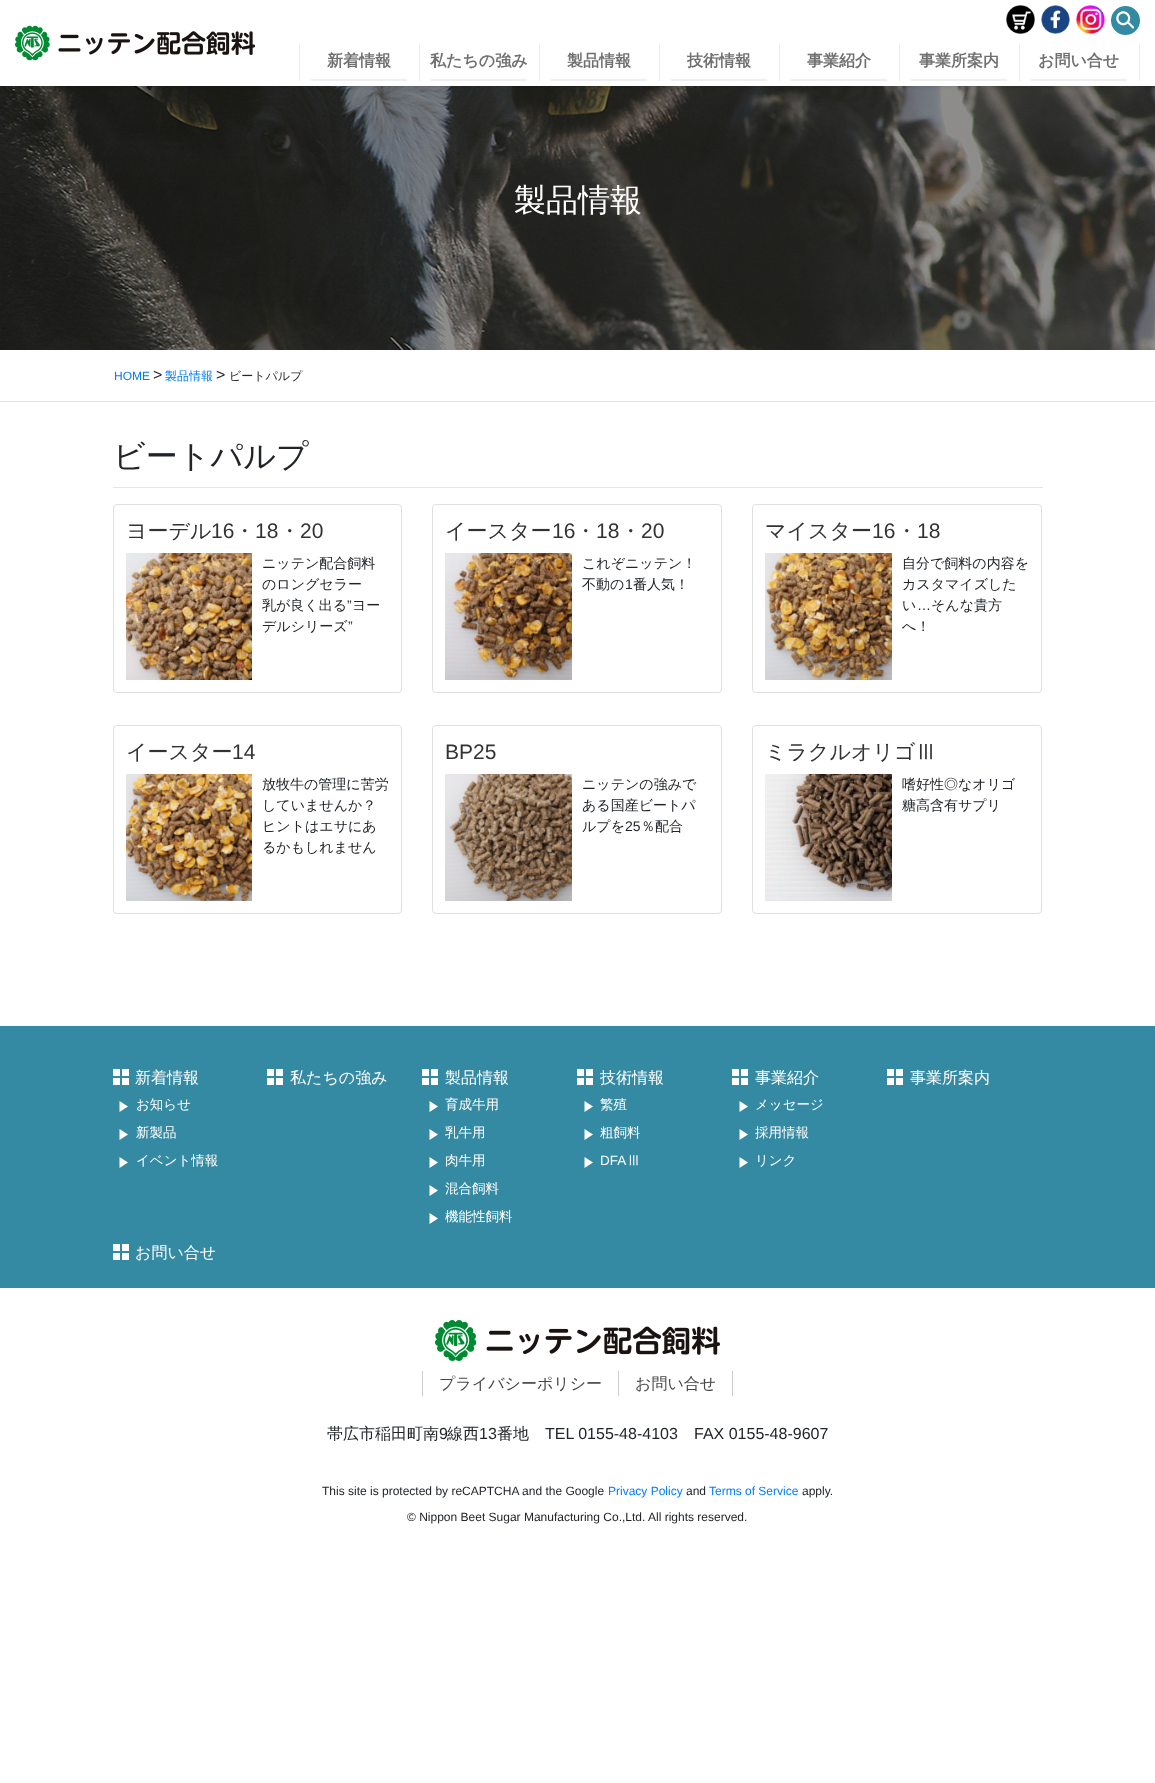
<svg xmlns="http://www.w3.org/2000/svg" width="1155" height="1783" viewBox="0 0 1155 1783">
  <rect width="100%" height="100%" fill="#fff"/>
  <image x="0" y="86" width="1155" height="264" href="img/6.png"/>
  <path d="M0 1h1155v86H0z" fill="#0000001a" filter="blur(1.5px)"/>
  <path d="M0 0h1155v86H0z" fill="#fff"/>
  <image x="15" y="25" width="240" height="36" href="img/1.png"/>
  <image x="1006" y="5" width="29" height="29" href="img/2.png"/>
  <image x="1041" y="5" width="29" height="29" href="img/3.png"/>
  <image x="1076" y="5" width="29" height="29" href="img/4.png"/>
  <image x="1111" y="6" width="29" height="29" href="img/5.png"/>
  <path d="M1139 44h1v37H1139z" fill="#ededed"/>
  <path d="M299 44h1v37H299z" fill="#ededed"/>
  <path d="M311 79h96v2H311z" fill="#efefef"/>
  <path d="M419 44h1v37H419z" fill="#ededed"/>
  <path d="M431 79h96v2H431z" fill="#efefef"/>
  <path d="M539 44h1v37H539z" fill="#ededed"/>
  <path d="M551 79h96v2H551z" fill="#efefef"/>
  <path d="M659 44h1v37H659z" fill="#ededed"/>
  <path d="M671 79h96v2H671z" fill="#efefef"/>
  <path d="M779 44h1v37H779z" fill="#ededed"/>
  <path d="M791 79h96v2H791z" fill="#efefef"/>
  <path d="M899 44h1v37H899z" fill="#ededed"/>
  <path d="M911 79h96v2H911z" fill="#efefef"/>
  <path d="M1019 44h1v37H1019z" fill="#ededed"/>
  <path d="M1031 79h96v2H1031z" fill="#efefef"/>
  <path d="M0 401h1155v1H0z" fill="#e5e5e5"/>
  <path d="M113 487h930v1H113z" fill="#e5e5e5"/>
  <rect x="113.5" y="504.5" width="288" height="188" rx="3.5" fill="none" stroke="#dfdfdf"/>
  <image x="126" y="553" width="126" height="127" href="img/7.png"/>
  <rect x="432.5" y="504.5" width="289" height="188" rx="3.5" fill="none" stroke="#dfdfdf"/>
  <image x="445" y="553" width="127" height="127" href="img/8.png"/>
  <rect x="752.5" y="504.5" width="289" height="188" rx="3.5" fill="none" stroke="#dfdfdf"/>
  <image x="765" y="553" width="127" height="127" href="img/9.png"/>
  <rect x="113.5" y="725.5" width="288" height="188" rx="3.5" fill="none" stroke="#dfdfdf"/>
  <image x="126" y="774" width="126" height="127" href="img/10.png"/>
  <rect x="432.5" y="725.5" width="289" height="188" rx="3.5" fill="none" stroke="#dfdfdf"/>
  <image x="445" y="774" width="127" height="127" href="img/11.png"/>
  <rect x="752.5" y="725.5" width="289" height="188" rx="3.5" fill="none" stroke="#dfdfdf"/>
  <image x="765" y="774" width="127" height="127" href="img/12.png"/>
  <path d="M0 1026h1155v262H0z" fill="#358aa3"/>
  <image x="113" y="1069" width="16" height="16" href="img/13.png"/>
  <path d="M119.5 1101L128 1106.5L119.5 1112Z" fill="#fff"/>
  <path d="M119.5 1129L128 1134.5L119.5 1140Z" fill="#fff"/>
  <path d="M119.5 1157L128 1162.5L119.5 1168Z" fill="#fff"/>
  <image x="267" y="1069" width="16" height="16" href="img/13.png"/>
  <image x="422" y="1069" width="16" height="16" href="img/13.png"/>
  <path d="M429.5 1101L438 1106.5L429.5 1112Z" fill="#fff"/>
  <path d="M429.5 1129L438 1134.5L429.5 1140Z" fill="#fff"/>
  <path d="M429.5 1157L438 1162.5L429.5 1168Z" fill="#fff"/>
  <path d="M429.5 1185L438 1190.5L429.5 1196Z" fill="#fff"/>
  <path d="M429.5 1213L438 1218.5L429.5 1224Z" fill="#fff"/>
  <image x="577" y="1069" width="16" height="16" href="img/13.png"/>
  <path d="M584.5 1101L593 1106.5L584.5 1112Z" fill="#fff"/>
  <path d="M584.5 1129L593 1134.5L584.5 1140Z" fill="#fff"/>
  <path d="M584.5 1157L593 1162.5L584.5 1168Z" fill="#fff"/>
  <image x="732" y="1069" width="16" height="16" href="img/13.png"/>
  <path d="M739.5 1101L748 1106.5L739.5 1112Z" fill="#fff"/>
  <path d="M739.5 1129L748 1134.5L739.5 1140Z" fill="#fff"/>
  <path d="M739.5 1157L748 1162.5L739.5 1168Z" fill="#fff"/>
  <image x="887" y="1069" width="16" height="16" href="img/13.png"/>
  <image x="113" y="1244" width="16" height="16" href="img/13.png"/>
  <image x="435" y="1320" width="285" height="41" href="img/14.png"/>
  <path d="M422 1371h1v25H422z" fill="#ccc"/>
  <path d="M732 1371h1v25H732z" fill="#ccc"/>
  <path d="M618 1371h1v25H618z" fill="#ccc"/>
  <g font-family="WenQuanYi Zen Hei" font-size="16" font-weight="bold" fill="#707070">
    <text x="327" y="66">新着情報</text>
    <text x="430" y="66">私たちの強み</text>
    <text x="567" y="66">製品情報</text>
    <text x="687" y="66">技術情報</text>
    <text x="807" y="66">事業紹介</text>
    <text x="919" y="66">事業所案内</text>
    <text x="1038" y="66">お問い合せ</text>
  </g>
  <text x="514" y="211" font-family="WenQuanYi Zen Hei" font-size="32" font-weight="500" fill="#fff">製品情報</text>
  <text x="114" y="380" font-family="Liberation Sans" font-size="12" fill="#007bff">HOME</text>
  <text x="153" y="380" font-family="Liberation Sans" font-size="16" fill="#212529">&gt;</text>
  <text x="165" y="380" font-family="WenQuanYi Zen Hei" font-size="12" font-weight="500" fill="#007bff">製品情報</text>
  <text x="216" y="380" font-family="Liberation Sans" font-size="16" fill="#212529">&gt;</text>
  <text x="229" y="380" font-family="WenQuanYi Zen Hei" font-size="12" font-weight="500" fill="#212529">ビートパルプ</text>
  <text x="113" y="467" font-family="WenQuanYi Zen Hei" font-size="32" font-weight="500" fill="#212529">ビートパルプ</text>
  <text x="126" y="538" font-family="WenQuanYi Zen Hei" font-size="21" font-weight="500" fill="#333">ヨーデル</text>
  <text x="211" y="538" font-family="Liberation Sans" font-size="21" fill="#333">16</text>
  <text x="234" y="538" font-family="WenQuanYi Zen Hei" font-size="21" font-weight="500" fill="#333">・</text>
  <text x="255" y="538" font-family="Liberation Sans" font-size="21" fill="#333">18</text>
  <text x="279" y="538" font-family="WenQuanYi Zen Hei" font-size="21" font-weight="500" fill="#333">・</text>
  <text x="300" y="538" font-family="Liberation Sans" font-size="21" fill="#333">20</text>
  <g font-family="WenQuanYi Zen Hei" font-size="14" font-weight="500" fill="#212529">
    <text x="262" y="568">ニッテン配合飼料</text>
    <text x="262" y="589">のロングセラー</text>
    <text x="262" y="610">乳が良く出る</text>
  </g>
  <text x="347" y="610" font-family="Liberation Sans" font-size="14" fill="#212529">”</text>
  <g font-family="WenQuanYi Zen Hei" font-size="14" font-weight="500" fill="#212529">
    <text x="352" y="610">ヨー</text>
    <text x="262" y="631">デルシリーズ</text>
  </g>
  <text x="348" y="631" font-family="Liberation Sans" font-size="14" fill="#212529">”</text>
  <text x="445" y="538" font-family="WenQuanYi Zen Hei" font-size="21" font-weight="500" fill="#333">イースター</text>
  <text x="552" y="538" font-family="Liberation Sans" font-size="21" fill="#333">16</text>
  <text x="575" y="538" font-family="WenQuanYi Zen Hei" font-size="21" font-weight="500" fill="#333">・</text>
  <text x="596" y="538" font-family="Liberation Sans" font-size="21" fill="#333">18</text>
  <text x="620" y="538" font-family="WenQuanYi Zen Hei" font-size="21" font-weight="500" fill="#333">・</text>
  <text x="641" y="538" font-family="Liberation Sans" font-size="21" fill="#333">20</text>
  <g font-family="WenQuanYi Zen Hei" font-size="14" font-weight="500" fill="#212529">
    <text x="582" y="568">これぞニッテン！</text>
    <text x="582" y="589">不動の</text>
  </g>
  <text x="625" y="589" font-family="Liberation Sans" font-size="14" fill="#212529">1</text>
  <text x="633" y="589" font-family="WenQuanYi Zen Hei" font-size="14" font-weight="500" fill="#212529">番人気！</text>
  <text x="765" y="538" font-family="WenQuanYi Zen Hei" font-size="21" font-weight="500" fill="#333">マイスター</text>
  <text x="872" y="538" font-family="Liberation Sans" font-size="21" fill="#333">16</text>
  <text x="896" y="538" font-family="WenQuanYi Zen Hei" font-size="21" font-weight="500" fill="#333">・</text>
  <text x="917" y="538" font-family="Liberation Sans" font-size="21" fill="#333">18</text>
  <g font-family="WenQuanYi Zen Hei" font-size="14" font-weight="500" fill="#212529">
    <text x="902" y="568">自分で飼料の内容を</text>
    <text x="902" y="589">カスタマイズした</text>
    <text x="902" y="610">い</text>
  </g>
  <text x="917" y="610" font-family="Liberation Sans" font-size="14" fill="#212529">…</text>
  <g font-family="WenQuanYi Zen Hei" font-size="14" font-weight="500" fill="#212529">
    <text x="931" y="610">そんな貴方</text>
    <text x="902" y="631">へ！</text>
  </g>
  <text x="126" y="759" font-family="WenQuanYi Zen Hei" font-size="21" font-weight="500" fill="#333">イースター</text>
  <text x="232" y="759" font-family="Liberation Sans" font-size="21" fill="#333">14</text>
  <g font-family="WenQuanYi Zen Hei" font-size="14" font-weight="500" fill="#212529">
    <text x="262" y="789">放牧牛の管理に苦労</text>
    <text x="262" y="810">していませんか？</text>
    <text x="262" y="831">ヒントはエサにあ</text>
    <text x="262" y="852">るかもしれません</text>
  </g>
  <text x="445" y="759" font-family="Liberation Sans" font-size="21" fill="#333">BP25</text>
  <g font-family="WenQuanYi Zen Hei" font-size="14" font-weight="500" fill="#212529">
    <text x="582" y="789">ニッテンの強みで</text>
    <text x="582" y="810">ある国産ビートパ</text>
    <text x="582" y="831">ルプを</text>
  </g>
  <text x="625" y="831" font-family="Liberation Sans" font-size="14" fill="#212529">25</text>
  <text x="641" y="831" font-family="WenQuanYi Zen Hei" font-size="14" font-weight="500" fill="#212529">％配合</text>
  <text x="765" y="759" font-family="WenQuanYi Zen Hei" font-size="21" font-weight="500" fill="#333">ミラクルオリゴⅢ</text>
  <g font-family="WenQuanYi Zen Hei" font-size="14" font-weight="500" fill="#212529">
    <text x="902" y="789">嗜好性◎なオリゴ</text>
    <text x="902" y="810">糖高含有サプリ</text>
  </g>
  <text x="135" y="1083" font-family="WenQuanYi Zen Hei" font-size="16" font-weight="500" fill="#fff">新着情報</text>
  <g font-family="WenQuanYi Zen Hei" font-size="13.5" font-weight="500" fill="#fff">
    <text x="136" y="1109">お知らせ</text>
    <text x="136" y="1137">新製品</text>
    <text x="136" y="1165">イベント情報</text>
  </g>
  <g font-family="WenQuanYi Zen Hei" font-size="16" font-weight="500" fill="#fff">
    <text x="290" y="1083">私たちの強み</text>
    <text x="445" y="1083">製品情報</text>
  </g>
  <g font-family="WenQuanYi Zen Hei" font-size="13.5" font-weight="500" fill="#fff">
    <text x="445" y="1109">育成牛用</text>
    <text x="445" y="1137">乳牛用</text>
    <text x="445" y="1165">肉牛用</text>
    <text x="445" y="1193">混合飼料</text>
    <text x="445" y="1221">機能性飼料</text>
  </g>
  <text x="600" y="1083" font-family="WenQuanYi Zen Hei" font-size="16" font-weight="500" fill="#fff">技術情報</text>
  <g font-family="WenQuanYi Zen Hei" font-size="13.5" font-weight="500" fill="#fff">
    <text x="600" y="1109">繁殖</text>
    <text x="600" y="1137">粗飼料</text>
  </g>
  <text x="600" y="1165" font-family="Liberation Sans" font-size="13.5" fill="#fff">DFA</text>
  <text x="627" y="1165" font-family="WenQuanYi Zen Hei" font-size="13.5" font-weight="500" fill="#fff">Ⅲ</text>
  <text x="755" y="1083" font-family="WenQuanYi Zen Hei" font-size="16" font-weight="500" fill="#fff">事業紹介</text>
  <g font-family="WenQuanYi Zen Hei" font-size="13.5" font-weight="500" fill="#fff">
    <text x="755" y="1109">メッセージ</text>
    <text x="755" y="1137">採用情報</text>
    <text x="755" y="1165">リンク</text>
  </g>
  <g font-family="WenQuanYi Zen Hei" font-size="16" font-weight="500" fill="#fff">
    <text x="910" y="1083">事業所案内</text>
    <text x="135" y="1258">お問い合せ</text>
  </g>
  <g font-family="WenQuanYi Zen Hei" font-size="16" font-weight="500" fill="#464646">
    <text x="439" y="1389">プライバシーポリシー</text>
    <text x="635" y="1389">お問い合せ</text>
  </g>
  <text x="327" y="1439" font-family="WenQuanYi Zen Hei" font-size="16" font-weight="500" fill="#212529">帯広市稲田町南</text>
  <text x="439" y="1439" font-family="Liberation Sans" font-size="16" fill="#212529">9</text>
  <text x="447" y="1439" font-family="WenQuanYi Zen Hei" font-size="16" font-weight="500" fill="#212529">線西</text>
  <text x="479" y="1439" font-family="Liberation Sans" font-size="16" fill="#212529">13</text>
  <text x="497" y="1439" font-family="WenQuanYi Zen Hei" font-size="16" font-weight="500" fill="#212529">番地</text>
  <g font-family="Liberation Sans" font-size="16" fill="#212529">
    <text x="545" y="1439">TEL 0155-48-4103</text>
    <text x="694" y="1439">FAX 0155-48-9607</text>
  </g>
  <text x="322" y="1495" font-family="Liberation Sans" font-size="12" fill="#212529">This site is protected by reCAPTCHA and the Google</text>
  <text x="608" y="1495" font-family="Liberation Sans" font-size="12" fill="#007bff">Privacy Policy</text>
  <text x="686" y="1495" font-family="Liberation Sans" font-size="12" fill="#212529">and</text>
  <text x="709" y="1495" font-family="Liberation Sans" font-size="12" fill="#007bff">Terms of Service</text>
  <g font-family="Liberation Sans" font-size="12" fill="#212529">
    <text x="802" y="1495">apply.</text>
    <text x="407" y="1521">© Nippon Beet Sugar Manufacturing Co.,Ltd. All rights reserved.</text>
  </g>
</svg>
